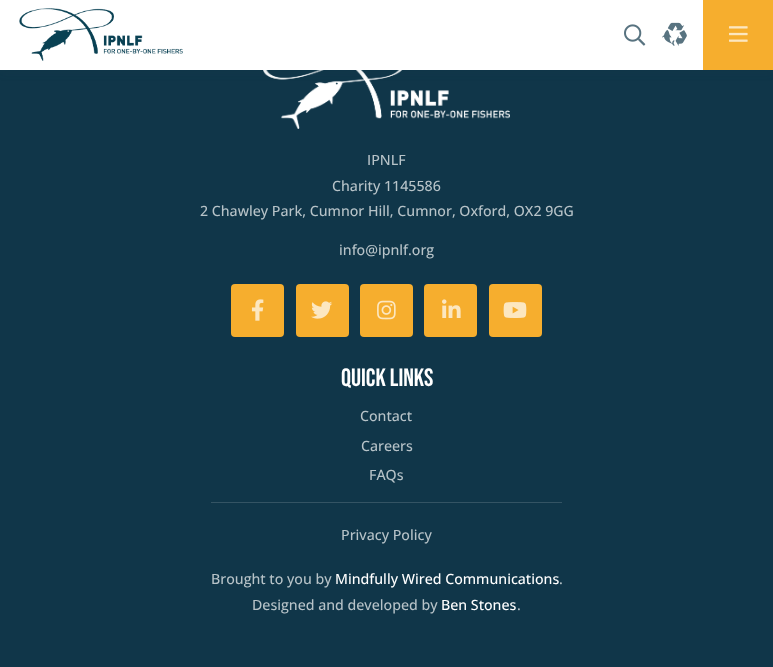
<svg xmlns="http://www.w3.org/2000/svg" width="773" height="667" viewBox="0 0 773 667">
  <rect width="100%" height="100%" fill="#103649"/>
  <image x="263" y="70" width="247" height="59" href="img/5.png"/>
  <path d="M0 3h773v70H0z" fill="#1036491a" filter="blur(4.5px)"/>
  <path d="M0 0h703v70H0z" fill="#fff"/>
  <image x="19" y="8" width="164" height="53" href="img/1.png"/>
  <image x="624" y="24" width="22" height="22" href="img/2.png"/>
  <image x="662" y="22" width="25" height="24" href="img/3.png"/>
  <path d="M703 0h70v70H703z" fill="#f6ae2e"/>
  <image x="729" y="26" width="19" height="16" href="img/4.png"/>
  <rect x="231" y="284" width="53" height="53" rx="4" fill="#f6ae2e"/>
  <image x="251" y="299" width="13" height="22" href="img/6.png"/>
  <rect x="296" y="284" width="53" height="53" rx="4" fill="#f6ae2e"/>
  <image x="311" y="301" width="22" height="18" href="img/7.png"/>
  <rect x="360" y="284" width="53" height="53" rx="4" fill="#f6ae2e"/>
  <image x="377" y="300" width="19" height="20" href="img/8.png"/>
  <rect x="424" y="284" width="53" height="53" rx="4" fill="#f6ae2e"/>
  <image x="442" y="299" width="19" height="19" href="img/9.png"/>
  <rect x="489" y="284" width="53" height="53" rx="4" fill="#f6ae2e"/>
  <image x="503" y="302" width="24" height="16" href="img/10.png"/>
  <path d="M211 502h351v1H211z" fill="#345464"/>
  <g font-family="Open Sans" font-size="14.2" font-weight="500" fill="#b7c3c8">
    <text x="367" y="165">IPNLF</text>
    <text x="332" y="191">Charity 1145586</text>
    <text x="200" y="216">2 Chawley Park, Cumnor Hill, Cumnor, Oxford, OX2 9GG</text>
    <text x="339" y="255">info@ipnlf.org</text>
  </g>
  <text x="341" y="386" font-family="Bebas Neue" font-size="25" fill="#fff">Quick Links</text>
  <g font-family="Open Sans" font-size="14.2" font-weight="500" fill="#b7c3c8">
    <text x="360" y="421">Contact</text>
    <text x="361" y="451">Careers</text>
    <text x="369" y="480">FAQs</text>
    <text x="341" y="540">Privacy Policy</text>
    <text x="211" y="584">Brought to you by</text>
  </g>
  <text x="335" y="584" font-family="Open Sans" font-size="14.2" font-weight="500" fill="#fff">Mindfully Wired Communications</text>
  <g font-family="Open Sans" font-size="14.2" font-weight="500" fill="#b7c3c8">
    <text x="559" y="584">.</text>
    <text x="252" y="610">Designed and developed by</text>
  </g>
  <text x="441" y="610" font-family="Open Sans" font-size="14.2" font-weight="500" fill="#fff">Ben Stones</text>
  <text x="517" y="610" font-family="Open Sans" font-size="14.2" font-weight="500" fill="#b7c3c8">.</text>
</svg>
